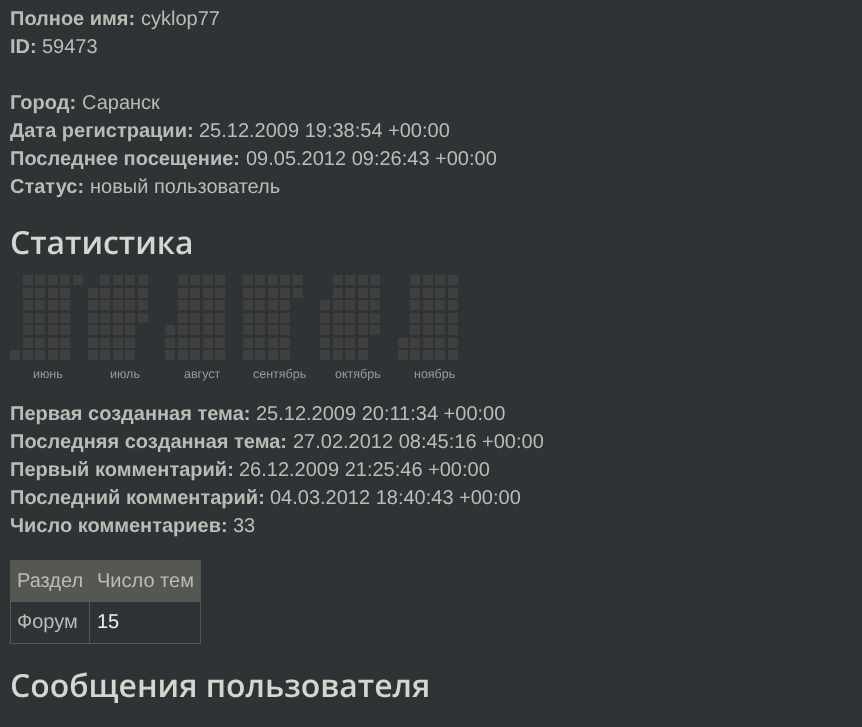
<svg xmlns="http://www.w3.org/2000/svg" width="862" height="727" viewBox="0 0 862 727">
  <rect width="100%" height="100%" fill="#2e3436"/>
  <image x="10" y="275" width="448" height="85" href="img/1.png"/>
  <path d="M11 561h189v40H11z" fill="#555753"/>
  <path d="M10 560h191v1H10z" fill="#555753"/>
  <path d="M89 601h112v1H89z" fill="#555753"/>
  <path d="M200 601h1v43H200z" fill="#555753"/>
  <path d="M89 643h112v1H89z" fill="#555753"/>
  <path d="M89 601h1v43H89z" fill="#555753"/>
  <path d="M10 601h80v1H10z" fill="#555753"/>
  <path d="M10 643h80v1H10z" fill="#555753"/>
  <path d="M10 601h1v43H10z" fill="#555753"/>
  <path d="M10 560h1v43H10z" fill="#555753"/>
  <path d="M200 560h1v43H200z" fill="#555753"/>
  <text x="10" y="25" font-family="Liberation Sans" font-size="20" font-weight="bold" fill="#babdb6">Полное имя:</text>
  <text x="141" y="25" font-family="Liberation Sans" font-size="20" fill="#babdb6">cyklop77</text>
  <text x="10" y="53" font-family="Liberation Sans" font-size="20" font-weight="bold" fill="#babdb6">ID:</text>
  <text x="42" y="53" font-family="Liberation Sans" font-size="20" fill="#babdb6">59473</text>
  <text x="10" y="109" font-family="Liberation Sans" font-size="20" font-weight="bold" fill="#babdb6">Город:</text>
  <text x="82" y="109" font-family="Liberation Sans" font-size="20" fill="#babdb6">Саранск</text>
  <text x="10" y="137" font-family="Liberation Sans" font-size="20" font-weight="bold" fill="#babdb6">Дата регистрации:</text>
  <text x="199" y="137" font-family="Liberation Sans" font-size="20" fill="#babdb6">25.12.2009 19:38:54 +00:00</text>
  <text x="10" y="165" font-family="Liberation Sans" font-size="20" font-weight="bold" fill="#babdb6">Последнее посещение:</text>
  <text x="246" y="165" font-family="Liberation Sans" font-size="20" fill="#babdb6">09.05.2012 09:26:43 +00:00</text>
  <text x="10" y="193" font-family="Liberation Sans" font-size="20" font-weight="bold" fill="#babdb6">Статус:</text>
  <text x="90" y="193" font-family="Liberation Sans" font-size="20" fill="#babdb6">новый пользователь</text>
  <text x="10" y="254" font-family="Open Sans" font-size="31.9" font-weight="600" fill="#d3d7cf">Статистика</text>
  <g font-family="Liberation Sans" font-size="12.5" fill="#999">
    <text x="33" y="378">июнь</text>
    <text x="110" y="378">июль</text>
    <text x="184" y="378">август</text>
    <text x="253" y="378">сентябрь</text>
    <text x="335" y="378">октябрь</text>
    <text x="414" y="378">ноябрь</text>
  </g>
  <text x="10" y="420" font-family="Liberation Sans" font-size="20" font-weight="bold" fill="#babdb6">Первая созданная тема:</text>
  <text x="256" y="420" font-family="Liberation Sans" font-size="20" fill="#babdb6">25.12.2009 20:11:34 +00:00</text>
  <text x="10" y="448" font-family="Liberation Sans" font-size="20" font-weight="bold" fill="#babdb6">Последняя созданная тема:</text>
  <text x="293" y="448" font-family="Liberation Sans" font-size="20" fill="#babdb6">27.02.2012 08:45:16 +00:00</text>
  <text x="10" y="476" font-family="Liberation Sans" font-size="20" font-weight="bold" fill="#babdb6">Первый комментарий:</text>
  <text x="239" y="476" font-family="Liberation Sans" font-size="20" fill="#babdb6">26.12.2009 21:25:46 +00:00</text>
  <text x="10" y="504" font-family="Liberation Sans" font-size="20" font-weight="bold" fill="#babdb6">Последний комментарий:</text>
  <text x="270" y="504" font-family="Liberation Sans" font-size="20" fill="#babdb6">04.03.2012 18:40:43 +00:00</text>
  <text x="10" y="532" font-family="Liberation Sans" font-size="20" font-weight="bold" fill="#babdb6">Число комментариев:</text>
  <g font-family="Liberation Sans" font-size="20" fill="#babdb6">
    <text x="233" y="532">33</text>
    <text x="17" y="587">Раздел</text>
    <text x="97" y="587">Число тем</text>
    <text x="17" y="628">Форум</text>
  </g>
  <text x="97" y="628" font-family="Liberation Sans" font-size="20" fill="#eeeeec">15</text>
  <text x="10" y="697" font-family="Open Sans" font-size="31.9" font-weight="600" fill="#d3d7cf">Сообщения пользователя</text>
</svg>
